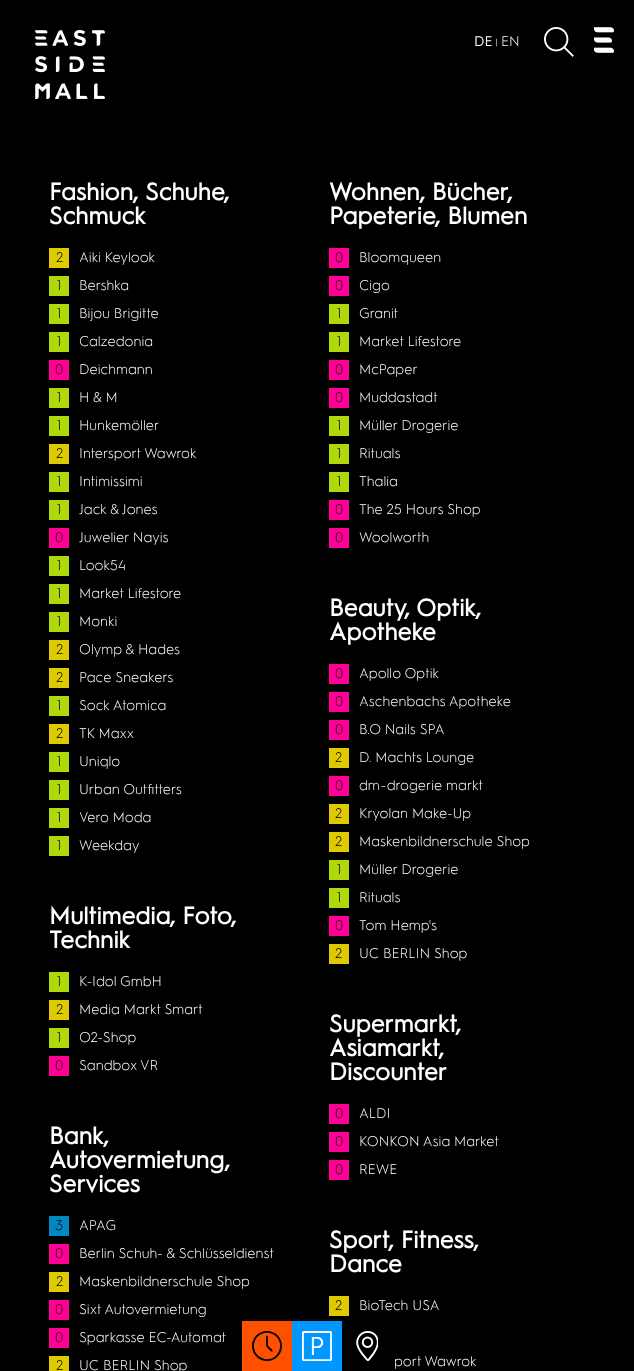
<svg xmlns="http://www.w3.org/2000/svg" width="634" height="1371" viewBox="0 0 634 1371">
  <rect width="100%" height="100%" fill="#000"/>
  <image x="35" y="30" width="70" height="69" href="img/1.png"/>
  <image x="544" y="27" width="30" height="30" href="img/2.png"/>
  <image x="594" y="27" width="20" height="26" href="img/3.png"/>
  <path d="M49 248h20v20H49z" fill="#ddca00"/>
  <path d="M49 276h20v20H49z" fill="#afd90b"/>
  <path d="M49 304h20v20H49z" fill="#afd90b"/>
  <path d="M49 332h20v20H49z" fill="#afd90b"/>
  <path d="M49 360h20v20H49z" fill="#ff0096"/>
  <path d="M49 388h20v20H49z" fill="#afd90b"/>
  <path d="M49 416h20v20H49z" fill="#afd90b"/>
  <path d="M49 444h20v20H49z" fill="#ddca00"/>
  <path d="M49 472h20v20H49z" fill="#afd90b"/>
  <path d="M49 500h20v20H49z" fill="#afd90b"/>
  <path d="M49 528h20v20H49z" fill="#ff0096"/>
  <path d="M49 556h20v20H49z" fill="#afd90b"/>
  <path d="M49 584h20v20H49z" fill="#afd90b"/>
  <path d="M49 612h20v20H49z" fill="#afd90b"/>
  <path d="M49 640h20v20H49z" fill="#ddca00"/>
  <path d="M49 668h20v20H49z" fill="#ddca00"/>
  <path d="M49 696h20v20H49z" fill="#afd90b"/>
  <path d="M49 724h20v20H49z" fill="#ddca00"/>
  <path d="M49 752h20v20H49z" fill="#afd90b"/>
  <path d="M49 780h20v20H49z" fill="#afd90b"/>
  <path d="M49 808h20v20H49z" fill="#afd90b"/>
  <path d="M49 836h20v20H49z" fill="#afd90b"/>
  <path d="M329 248h20v20H329z" fill="#ff0096"/>
  <path d="M329 276h20v20H329z" fill="#ff0096"/>
  <path d="M329 304h20v20H329z" fill="#afd90b"/>
  <path d="M329 332h20v20H329z" fill="#afd90b"/>
  <path d="M329 360h20v20H329z" fill="#ff0096"/>
  <path d="M329 388h20v20H329z" fill="#ff0096"/>
  <path d="M329 416h20v20H329z" fill="#afd90b"/>
  <path d="M329 444h20v20H329z" fill="#afd90b"/>
  <path d="M329 472h20v20H329z" fill="#afd90b"/>
  <path d="M329 500h20v20H329z" fill="#ff0096"/>
  <path d="M329 528h20v20H329z" fill="#ff0096"/>
  <path d="M329 664h20v20H329z" fill="#ff0096"/>
  <path d="M329 692h20v20H329z" fill="#ff0096"/>
  <path d="M329 720h20v20H329z" fill="#ff0096"/>
  <path d="M329 748h20v20H329z" fill="#ddca00"/>
  <path d="M329 776h20v20H329z" fill="#ff0096"/>
  <path d="M329 804h20v20H329z" fill="#ddca00"/>
  <path d="M329 832h20v20H329z" fill="#ddca00"/>
  <path d="M329 860h20v20H329z" fill="#afd90b"/>
  <path d="M329 888h20v20H329z" fill="#afd90b"/>
  <path d="M329 916h20v20H329z" fill="#ff0096"/>
  <path d="M329 944h20v20H329z" fill="#ddca00"/>
  <path d="M49 972h20v20H49z" fill="#afd90b"/>
  <path d="M49 1000h20v20H49z" fill="#ddca00"/>
  <path d="M49 1028h20v20H49z" fill="#afd90b"/>
  <path d="M49 1056h20v20H49z" fill="#ff0096"/>
  <path d="M329 1104h20v20H329z" fill="#ff0096"/>
  <path d="M329 1132h20v20H329z" fill="#ff0096"/>
  <path d="M329 1160h20v20H329z" fill="#ff0096"/>
  <path d="M49 1216h20v20H49z" fill="#0088c2"/>
  <path d="M49 1244h20v20H49z" fill="#ff0096"/>
  <path d="M49 1272h20v20H49z" fill="#ddca00"/>
  <path d="M49 1300h20v20H49z" fill="#ff0096"/>
  <path d="M49 1328h20v20H49z" fill="#ff0096"/>
  <path d="M49 1356h20v15H49z" fill="#ddca00"/>
  <path d="M329 1296h20v20H329z" fill="#ddca00"/>
  <path d="M242 1321h50v50H242z" fill="#ff5000"/>
  <image x="252" y="1331" width="30" height="30" href="img/4.png"/>
  <path d="M292 1321h50v50H292z" fill="#0097ff"/>
  <image x="302" y="1331" width="30" height="30" href="img/5.png"/>
  <image x="356" y="1331" width="22" height="30" href="img/6.png"/>
  <text x="474" y="46" font-family="'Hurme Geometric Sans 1'" font-size="14" fill="#fff">DE</text>
  <text x="495" y="46" font-family="'Hurme Geometric Sans 1'" font-size="10" font-weight="300" fill="#fff">|</text>
  <text x="501" y="46" font-family="'Hurme Geometric Sans 1'" font-size="14" font-weight="300" fill="#fff">EN</text>
  <g font-family="'Hurme Geometric Sans 1'" font-size="24" font-weight="bold" fill="#fff">
    <text x="49" y="200">Fashion, Schuhe,</text>
    <text x="49" y="224">Schmuck</text>
  </g>
  <text x="56" y="262" font-family="'Hurme Geometric Sans 1'" font-size="14" font-weight="300" fill="#000">2</text>
  <text x="79" y="262" font-family="'Hurme Geometric Sans 1'" font-size="14" font-weight="300" fill="#fff">Aiki Keylook</text>
  <text x="57" y="290" font-family="'Hurme Geometric Sans 1'" font-size="14" font-weight="300" fill="#000">1</text>
  <text x="79" y="290" font-family="'Hurme Geometric Sans 1'" font-size="14" font-weight="300" fill="#fff">Bershka</text>
  <text x="57" y="318" font-family="'Hurme Geometric Sans 1'" font-size="14" font-weight="300" fill="#000">1</text>
  <text x="79" y="318" font-family="'Hurme Geometric Sans 1'" font-size="14" font-weight="300" fill="#fff">Bijou Brigitte</text>
  <text x="57" y="346" font-family="'Hurme Geometric Sans 1'" font-size="14" font-weight="300" fill="#000">1</text>
  <text x="79" y="346" font-family="'Hurme Geometric Sans 1'" font-size="14" font-weight="300" fill="#fff">Calzedonia</text>
  <text x="55" y="374" font-family="'Hurme Geometric Sans 1'" font-size="14" font-weight="300" fill="#000">0</text>
  <text x="79" y="374" font-family="'Hurme Geometric Sans 1'" font-size="14" font-weight="300" fill="#fff">Deichmann</text>
  <text x="57" y="402" font-family="'Hurme Geometric Sans 1'" font-size="14" font-weight="300" fill="#000">1</text>
  <text x="79" y="402" font-family="'Hurme Geometric Sans 1'" font-size="14" font-weight="300" fill="#fff">H &amp; M</text>
  <text x="57" y="430" font-family="'Hurme Geometric Sans 1'" font-size="14" font-weight="300" fill="#000">1</text>
  <text x="79" y="430" font-family="'Hurme Geometric Sans 1'" font-size="14" font-weight="300" fill="#fff">Hunkemöller</text>
  <text x="56" y="458" font-family="'Hurme Geometric Sans 1'" font-size="14" font-weight="300" fill="#000">2</text>
  <text x="79" y="458" font-family="'Hurme Geometric Sans 1'" font-size="14" font-weight="300" fill="#fff">Intersport Wawrok</text>
  <text x="57" y="486" font-family="'Hurme Geometric Sans 1'" font-size="14" font-weight="300" fill="#000">1</text>
  <text x="79" y="486" font-family="'Hurme Geometric Sans 1'" font-size="14" font-weight="300" fill="#fff">Intimissimi</text>
  <text x="57" y="514" font-family="'Hurme Geometric Sans 1'" font-size="14" font-weight="300" fill="#000">1</text>
  <text x="79" y="514" font-family="'Hurme Geometric Sans 1'" font-size="14" font-weight="300" fill="#fff">Jack &amp; Jones</text>
  <text x="55" y="542" font-family="'Hurme Geometric Sans 1'" font-size="14" font-weight="300" fill="#000">0</text>
  <text x="79" y="542" font-family="'Hurme Geometric Sans 1'" font-size="14" font-weight="300" fill="#fff">Juwelier Nayis</text>
  <text x="57" y="570" font-family="'Hurme Geometric Sans 1'" font-size="14" font-weight="300" fill="#000">1</text>
  <text x="79" y="570" font-family="'Hurme Geometric Sans 1'" font-size="14" font-weight="300" fill="#fff">Look54</text>
  <text x="57" y="598" font-family="'Hurme Geometric Sans 1'" font-size="14" font-weight="300" fill="#000">1</text>
  <text x="79" y="598" font-family="'Hurme Geometric Sans 1'" font-size="14" font-weight="300" fill="#fff">Market Lifestore</text>
  <text x="57" y="626" font-family="'Hurme Geometric Sans 1'" font-size="14" font-weight="300" fill="#000">1</text>
  <text x="79" y="626" font-family="'Hurme Geometric Sans 1'" font-size="14" font-weight="300" fill="#fff">Monki</text>
  <text x="56" y="654" font-family="'Hurme Geometric Sans 1'" font-size="14" font-weight="300" fill="#000">2</text>
  <text x="79" y="654" font-family="'Hurme Geometric Sans 1'" font-size="14" font-weight="300" fill="#fff">Olymp &amp; Hades</text>
  <text x="56" y="682" font-family="'Hurme Geometric Sans 1'" font-size="14" font-weight="300" fill="#000">2</text>
  <text x="79" y="682" font-family="'Hurme Geometric Sans 1'" font-size="14" font-weight="300" fill="#fff">Pace Sneakers</text>
  <text x="57" y="710" font-family="'Hurme Geometric Sans 1'" font-size="14" font-weight="300" fill="#000">1</text>
  <text x="79" y="710" font-family="'Hurme Geometric Sans 1'" font-size="14" font-weight="300" fill="#fff">Sock Atomica</text>
  <text x="56" y="738" font-family="'Hurme Geometric Sans 1'" font-size="14" font-weight="300" fill="#000">2</text>
  <text x="79" y="738" font-family="'Hurme Geometric Sans 1'" font-size="14" font-weight="300" fill="#fff">TK Maxx</text>
  <text x="57" y="766" font-family="'Hurme Geometric Sans 1'" font-size="14" font-weight="300" fill="#000">1</text>
  <text x="79" y="766" font-family="'Hurme Geometric Sans 1'" font-size="14" font-weight="300" fill="#fff">Uniqlo</text>
  <text x="57" y="794" font-family="'Hurme Geometric Sans 1'" font-size="14" font-weight="300" fill="#000">1</text>
  <text x="79" y="794" font-family="'Hurme Geometric Sans 1'" font-size="14" font-weight="300" fill="#fff">Urban Outfitters</text>
  <text x="57" y="822" font-family="'Hurme Geometric Sans 1'" font-size="14" font-weight="300" fill="#000">1</text>
  <text x="79" y="822" font-family="'Hurme Geometric Sans 1'" font-size="14" font-weight="300" fill="#fff">Vero Moda</text>
  <text x="57" y="850" font-family="'Hurme Geometric Sans 1'" font-size="14" font-weight="300" fill="#000">1</text>
  <text x="79" y="850" font-family="'Hurme Geometric Sans 1'" font-size="14" font-weight="300" fill="#fff">Weekday</text>
  <g font-family="'Hurme Geometric Sans 1'" font-size="24" font-weight="bold" fill="#fff">
    <text x="329" y="200">Wohnen, Bücher,</text>
    <text x="329" y="224">Papeterie, Blumen</text>
  </g>
  <text x="335" y="262" font-family="'Hurme Geometric Sans 1'" font-size="14" font-weight="300" fill="#000">0</text>
  <text x="359" y="262" font-family="'Hurme Geometric Sans 1'" font-size="14" font-weight="300" fill="#fff">Bloomqueen</text>
  <text x="335" y="290" font-family="'Hurme Geometric Sans 1'" font-size="14" font-weight="300" fill="#000">0</text>
  <text x="359" y="290" font-family="'Hurme Geometric Sans 1'" font-size="14" font-weight="300" fill="#fff">Cigo</text>
  <text x="337" y="318" font-family="'Hurme Geometric Sans 1'" font-size="14" font-weight="300" fill="#000">1</text>
  <text x="359" y="318" font-family="'Hurme Geometric Sans 1'" font-size="14" font-weight="300" fill="#fff">Granit</text>
  <text x="337" y="346" font-family="'Hurme Geometric Sans 1'" font-size="14" font-weight="300" fill="#000">1</text>
  <text x="359" y="346" font-family="'Hurme Geometric Sans 1'" font-size="14" font-weight="300" fill="#fff">Market Lifestore</text>
  <text x="335" y="374" font-family="'Hurme Geometric Sans 1'" font-size="14" font-weight="300" fill="#000">0</text>
  <text x="359" y="374" font-family="'Hurme Geometric Sans 1'" font-size="14" font-weight="300" fill="#fff">McPaper</text>
  <text x="335" y="402" font-family="'Hurme Geometric Sans 1'" font-size="14" font-weight="300" fill="#000">0</text>
  <text x="359" y="402" font-family="'Hurme Geometric Sans 1'" font-size="14" font-weight="300" fill="#fff">Muddastadt</text>
  <text x="337" y="430" font-family="'Hurme Geometric Sans 1'" font-size="14" font-weight="300" fill="#000">1</text>
  <text x="359" y="430" font-family="'Hurme Geometric Sans 1'" font-size="14" font-weight="300" fill="#fff">Müller Drogerie</text>
  <text x="337" y="458" font-family="'Hurme Geometric Sans 1'" font-size="14" font-weight="300" fill="#000">1</text>
  <text x="359" y="458" font-family="'Hurme Geometric Sans 1'" font-size="14" font-weight="300" fill="#fff">Rituals</text>
  <text x="337" y="486" font-family="'Hurme Geometric Sans 1'" font-size="14" font-weight="300" fill="#000">1</text>
  <text x="359" y="486" font-family="'Hurme Geometric Sans 1'" font-size="14" font-weight="300" fill="#fff">Thalia</text>
  <text x="335" y="514" font-family="'Hurme Geometric Sans 1'" font-size="14" font-weight="300" fill="#000">0</text>
  <text x="359" y="514" font-family="'Hurme Geometric Sans 1'" font-size="14" font-weight="300" fill="#fff">The 25 Hours Shop</text>
  <text x="335" y="542" font-family="'Hurme Geometric Sans 1'" font-size="14" font-weight="300" fill="#000">0</text>
  <text x="359" y="542" font-family="'Hurme Geometric Sans 1'" font-size="14" font-weight="300" fill="#fff">Woolworth</text>
  <g font-family="'Hurme Geometric Sans 1'" font-size="24" font-weight="bold" fill="#fff">
    <text x="329" y="616">Beauty, Optik,</text>
    <text x="329" y="640">Apotheke</text>
  </g>
  <text x="335" y="678" font-family="'Hurme Geometric Sans 1'" font-size="14" font-weight="300" fill="#000">0</text>
  <text x="359" y="678" font-family="'Hurme Geometric Sans 1'" font-size="14" font-weight="300" fill="#fff">Apollo Optik</text>
  <text x="335" y="706" font-family="'Hurme Geometric Sans 1'" font-size="14" font-weight="300" fill="#000">0</text>
  <text x="359" y="706" font-family="'Hurme Geometric Sans 1'" font-size="14" font-weight="300" fill="#fff">Aschenbachs Apotheke</text>
  <text x="335" y="734" font-family="'Hurme Geometric Sans 1'" font-size="14" font-weight="300" fill="#000">0</text>
  <text x="359" y="734" font-family="'Hurme Geometric Sans 1'" font-size="14" font-weight="300" fill="#fff">B.O Nails SPA</text>
  <text x="335" y="762" font-family="'Hurme Geometric Sans 1'" font-size="14" font-weight="300" fill="#000">2</text>
  <text x="359" y="762" font-family="'Hurme Geometric Sans 1'" font-size="14" font-weight="300" fill="#fff">D. Machts Lounge</text>
  <text x="335" y="790" font-family="'Hurme Geometric Sans 1'" font-size="14" font-weight="300" fill="#000">0</text>
  <text x="359" y="790" font-family="'Hurme Geometric Sans 1'" font-size="14" font-weight="300" fill="#fff">dm - drogerie markt</text>
  <text x="335" y="818" font-family="'Hurme Geometric Sans 1'" font-size="14" font-weight="300" fill="#000">2</text>
  <text x="359" y="818" font-family="'Hurme Geometric Sans 1'" font-size="14" font-weight="300" fill="#fff">Kryolan Make-Up</text>
  <text x="335" y="846" font-family="'Hurme Geometric Sans 1'" font-size="14" font-weight="300" fill="#000">2</text>
  <text x="359" y="846" font-family="'Hurme Geometric Sans 1'" font-size="14" font-weight="300" fill="#fff">Maskenbildnerschule Shop</text>
  <text x="337" y="874" font-family="'Hurme Geometric Sans 1'" font-size="14" font-weight="300" fill="#000">1</text>
  <text x="359" y="874" font-family="'Hurme Geometric Sans 1'" font-size="14" font-weight="300" fill="#fff">Müller Drogerie</text>
  <text x="337" y="902" font-family="'Hurme Geometric Sans 1'" font-size="14" font-weight="300" fill="#000">1</text>
  <text x="359" y="902" font-family="'Hurme Geometric Sans 1'" font-size="14" font-weight="300" fill="#fff">Rituals</text>
  <text x="335" y="930" font-family="'Hurme Geometric Sans 1'" font-size="14" font-weight="300" fill="#000">0</text>
  <text x="359" y="930" font-family="'Hurme Geometric Sans 1'" font-size="14" font-weight="300" fill="#fff">Tom Hemp's</text>
  <text x="335" y="958" font-family="'Hurme Geometric Sans 1'" font-size="14" font-weight="300" fill="#000">2</text>
  <text x="359" y="958" font-family="'Hurme Geometric Sans 1'" font-size="14" font-weight="300" fill="#fff">UC BERLIN Shop</text>
  <g font-family="'Hurme Geometric Sans 1'" font-size="24" font-weight="bold" fill="#fff">
    <text x="49" y="924">Multimedia, Foto,</text>
    <text x="49" y="948">Technik</text>
  </g>
  <text x="57" y="986" font-family="'Hurme Geometric Sans 1'" font-size="14" font-weight="300" fill="#000">1</text>
  <text x="79" y="986" font-family="'Hurme Geometric Sans 1'" font-size="14" font-weight="300" fill="#fff">K-Idol GmbH</text>
  <text x="56" y="1014" font-family="'Hurme Geometric Sans 1'" font-size="14" font-weight="300" fill="#000">2</text>
  <text x="79" y="1014" font-family="'Hurme Geometric Sans 1'" font-size="14" font-weight="300" fill="#fff">Media Markt Smart</text>
  <text x="57" y="1042" font-family="'Hurme Geometric Sans 1'" font-size="14" font-weight="300" fill="#000">1</text>
  <text x="79" y="1042" font-family="'Hurme Geometric Sans 1'" font-size="14" font-weight="300" fill="#fff">O2-Shop</text>
  <text x="55" y="1070" font-family="'Hurme Geometric Sans 1'" font-size="14" font-weight="300" fill="#000">0</text>
  <text x="79" y="1070" font-family="'Hurme Geometric Sans 1'" font-size="14" font-weight="300" fill="#fff">Sandbox VR</text>
  <g font-family="'Hurme Geometric Sans 1'" font-size="24" font-weight="bold" fill="#fff">
    <text x="329" y="1032">Supermarkt,</text>
    <text x="329" y="1056">Asiamarkt,</text>
    <text x="329" y="1080">Discounter</text>
  </g>
  <text x="335" y="1118" font-family="'Hurme Geometric Sans 1'" font-size="14" font-weight="300" fill="#000">0</text>
  <text x="359" y="1118" font-family="'Hurme Geometric Sans 1'" font-size="14" font-weight="300" fill="#fff">ALDI</text>
  <text x="335" y="1146" font-family="'Hurme Geometric Sans 1'" font-size="14" font-weight="300" fill="#000">0</text>
  <text x="359" y="1146" font-family="'Hurme Geometric Sans 1'" font-size="14" font-weight="300" fill="#fff">KONKON Asia Market</text>
  <text x="335" y="1174" font-family="'Hurme Geometric Sans 1'" font-size="14" font-weight="300" fill="#000">0</text>
  <text x="359" y="1174" font-family="'Hurme Geometric Sans 1'" font-size="14" font-weight="300" fill="#fff">REWE</text>
  <g font-family="'Hurme Geometric Sans 1'" font-size="24" font-weight="bold" fill="#fff">
    <text x="49" y="1144">Bank,</text>
    <text x="49" y="1168">Autovermietung,</text>
    <text x="49" y="1192">Services</text>
  </g>
  <text x="55" y="1230" font-family="'Hurme Geometric Sans 1'" font-size="14" font-weight="300" fill="#000">3</text>
  <text x="79" y="1230" font-family="'Hurme Geometric Sans 1'" font-size="14" font-weight="300" fill="#fff">APAG</text>
  <text x="55" y="1258" font-family="'Hurme Geometric Sans 1'" font-size="14" font-weight="300" fill="#000">0</text>
  <text x="79" y="1258" font-family="'Hurme Geometric Sans 1'" font-size="14" font-weight="300" fill="#fff">Berlin Schuh- &amp; Schlüsseldienst</text>
  <text x="56" y="1286" font-family="'Hurme Geometric Sans 1'" font-size="14" font-weight="300" fill="#000">2</text>
  <text x="79" y="1286" font-family="'Hurme Geometric Sans 1'" font-size="14" font-weight="300" fill="#fff">Maskenbildnerschule Shop</text>
  <text x="55" y="1314" font-family="'Hurme Geometric Sans 1'" font-size="14" font-weight="300" fill="#000">0</text>
  <text x="79" y="1314" font-family="'Hurme Geometric Sans 1'" font-size="14" font-weight="300" fill="#fff">Sixt Autovermietung</text>
  <text x="55" y="1342" font-family="'Hurme Geometric Sans 1'" font-size="14" font-weight="300" fill="#000">0</text>
  <text x="79" y="1342" font-family="'Hurme Geometric Sans 1'" font-size="14" font-weight="300" fill="#fff">Sparkasse EC-Automat</text>
  <text x="56" y="1370" font-family="'Hurme Geometric Sans 1'" font-size="14" font-weight="300" fill="#000">2</text>
  <text x="79" y="1370" font-family="'Hurme Geometric Sans 1'" font-size="14" font-weight="300" fill="#fff">UC BERLIN Shop</text>
  <g font-family="'Hurme Geometric Sans 1'" font-size="24" font-weight="bold" fill="#fff">
    <text x="329" y="1248">Sport, Fitness,</text>
    <text x="329" y="1272">Dance</text>
  </g>
  <text x="335" y="1310" font-family="'Hurme Geometric Sans 1'" font-size="14" font-weight="300" fill="#000">2</text>
  <g font-family="'Hurme Geometric Sans 1'" font-size="14" font-weight="300" fill="#fff">
    <text x="359" y="1310">BioTech USA</text>
    <text x="394" y="1366">port Wawrok</text>
  </g>
</svg>
